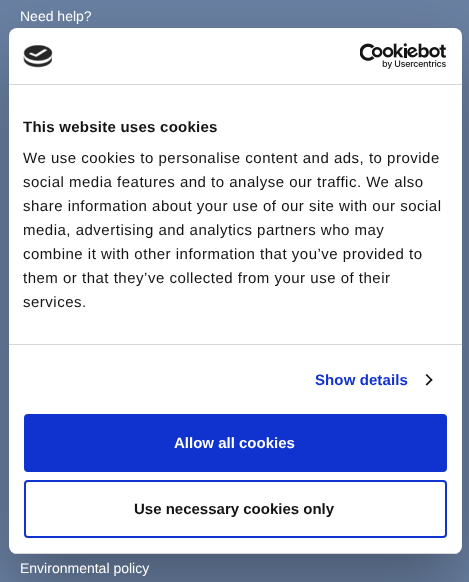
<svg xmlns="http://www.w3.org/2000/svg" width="469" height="582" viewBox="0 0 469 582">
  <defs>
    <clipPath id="clip1"><rect x="9" y="28" width="453" height="526" rx="8"/></clipPath>
  </defs>
  <rect width="100%" height="100%" fill="#6a80a2"/>
  <rect x="9" y="60" width="453" height="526" rx="8" fill="#0000004d" filter="blur(34px)"/>
  <rect x="9" y="28" width="453" height="526" rx="8" fill="#fff"/>
  <path d="M9 84h453v1H9z" fill="#d6d6d6"/>
  <image x="23" y="45" width="30" height="23" href="img/1.png"/>
  <image x="360" y="43" width="86" height="26" href="img/2.png"/>
  <path d="M9 344h453v1H9z" fill="#d6d6d6"/>
  <path d="M427 374L432.5 380L431.5 381L425.5 375Z" fill="#141414"/>
  <path d="M431.5 378.5L432.5 380L427 385.5L425.5 384.5Z" fill="#141414"/>
  <g clip-path="url(#clip1)">
    <path d="M9 553h453v1H9z" fill="#d6d6d6"/>
  </g>
  <rect x="25" y="415" width="421" height="56" rx="3" fill="#1032cf" stroke="#1032cf" stroke-width="2"/>
  <rect x="25" y="481" width="421" height="56" rx="3" fill="none" stroke="#1032cf" stroke-width="2"/>
  <g font-family="Liberation Sans" font-size="14" fill="#fff">
    <text x="20" y="21">Need help?</text>
    <text x="20" y="573">Environmental policy</text>
  </g>
  <text x="23" y="132" font-family="Liberation Sans" font-size="15" font-weight="bold" letter-spacing="0.25" fill="#141414">This website uses cookies</text>
  <g font-family="Liberation Sans" font-size="15" letter-spacing="0.5" fill="#141414">
    <text x="23" y="163">We use cookies to personalise content and ads, to provide</text>
    <text x="23" y="187">social media features and to analyse our traffic. We also</text>
    <text x="23" y="211">share information about your use of our site with our social</text>
    <text x="23" y="235">media, advertising and analytics partners who may</text>
    <text x="23" y="259">combine it with other information that you’ve provided to</text>
    <text x="23" y="283">them or that they’ve collected from your use of their</text>
    <text x="23" y="307">services.</text>
  </g>
  <text x="315" y="385" font-family="Liberation Sans" font-size="15" font-weight="bold" letter-spacing="0.1" fill="#1032cf">Show details</text>
  <text x="174" y="448" font-family="Liberation Sans" font-size="15" font-weight="bold" fill="#fff">Allow all cookies</text>
  <text x="134" y="514" font-family="Liberation Sans" font-size="15" font-weight="bold" fill="#141414">Use necessary cookies only</text>
</svg>
